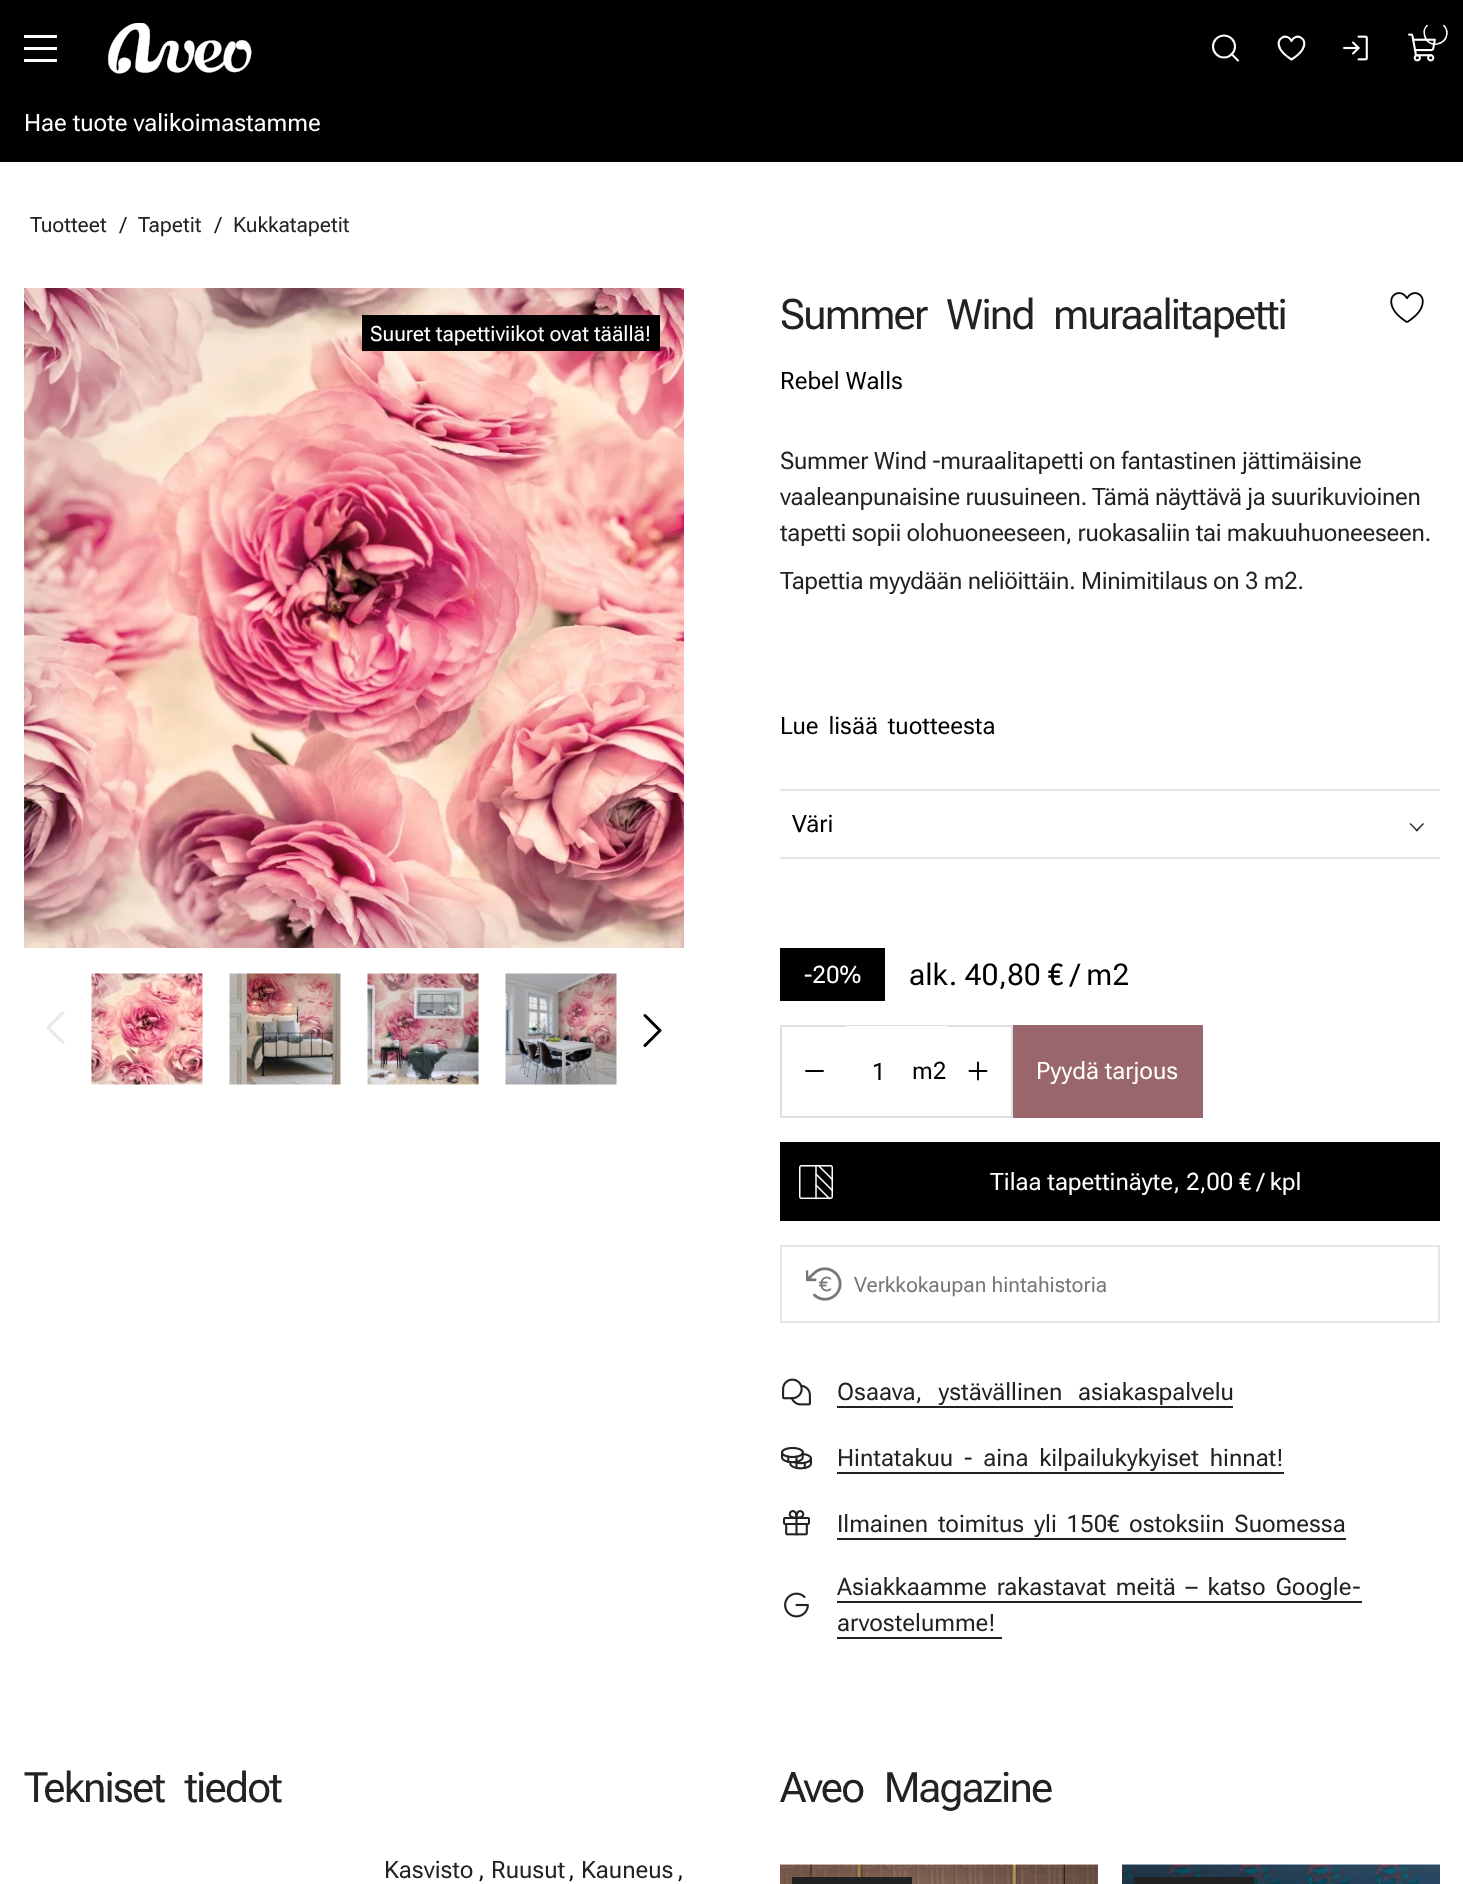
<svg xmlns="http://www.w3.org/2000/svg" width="1463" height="1884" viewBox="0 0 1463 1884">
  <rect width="100%" height="100%" fill="#fff"/>
  <path d="M0 0h1463v162H0z" fill="#000"/>
  <path d="M24 35h33v3H24z" fill="#fff"/>
  <path d="M24 47h33v3H24z" fill="#fff"/>
  <path d="M24 59h33v3H24z" fill="#fff"/>
  <image x="108" y="23" width="144" height="51" href="img/1.png"/>
  <path d="M1291.5 59.5C1287.5 57 1283 53.5 1280.5 49.5C1273.5 38 1288 32 1291.5 41C1295 32 1309.5 38 1302.5 49.5C1300 53.5 1295.5 57 1291.5 59.5Z" fill="none" stroke="#fff" stroke-width="2.1" stroke-linecap="round" stroke-linejoin="round"/>
  <image x="1343" y="35" width="25" height="26" href="img/2.png"/>
  <image x="1408" y="33" width="28" height="29" href="img/3.png"/>
  <path d="M1443.5 25C1445.5 27 1447 30 1447 33C1446.5 46.5 1427 48.5 1424.5 35C1423.5 31.5 1425 27.5 1427.5 25" fill="none" stroke="#fff" stroke-width="1.5"/>
  <circle cx="1224" cy="46.5" r="11" fill="none" stroke="#fff" stroke-width="2.1"/>
  <path d="M1231.5 54L1238 60.5" fill="none" stroke="#fff" stroke-width="2.1" stroke-linecap="round" stroke-linejoin="round"/>
  <image x="24" y="288" width="660" height="660" href="img/4.png"/>
  <path d="M362 315h298v36H362z" fill="#000"/>
  <path d="M63 1042.5L48 1027.5L63 1012.5" fill="none" stroke="#e9e9e9" stroke-width="3" stroke-linecap="round" stroke-linejoin="round"/>
  <image x="91" y="973" width="112" height="112" href="img/5.png"/>
  <image x="229" y="973" width="112" height="112" href="img/6.png"/>
  <image x="367" y="973" width="112" height="112" href="img/7.png"/>
  <image x="505" y="973" width="112" height="112" href="img/8.png"/>
  <path d="M645 1015.5L660 1030.5L645 1045.5" fill="none" stroke="#000" stroke-width="3" stroke-linecap="round" stroke-linejoin="round"/>
  <image x="1390" y="292" width="34" height="31" href="img/9.png"/>
  <path d="M780 789h660v2H780z" fill="#e6e6e6"/>
  <path d="M780 857h660v2H780z" fill="#e6e6e6"/>
  <path d="M1423 823L1424 824L1417 831.5L1415.5 830.5Z" fill="#303030"/>
  <path d="M1410.5 823L1418 830.5L1417 831.5L1409.5 824Z" fill="#303030"/>
  <path d="M780 948h105v53H780z" fill="#000"/>
  <path d="M780 1025h66v2H780z" fill="#e0e0e0"/>
  <path d="M780 1116h167v2H780z" fill="#e0e0e0"/>
  <path d="M780 1025h2v93H780z" fill="#e0e0e0"/>
  <path d="M823 1071H806" fill="none" stroke="#000" stroke-width="1.9" stroke-linecap="round" stroke-linejoin="round"/>
  <path d="M947 1025h66v2H947z" fill="#e0e0e0"/>
  <path d="M1011 1025h2v93H1011z" fill="#e0e0e0"/>
  <path d="M947 1116h66v2H947z" fill="#e0e0e0"/>
  <path d="M978 1062.5V1079.5M986.5 1071H969.5" fill="none" stroke="#000" stroke-width="1.9" stroke-linecap="round" stroke-linejoin="round"/>
  <path d="M846 1025h101v1H846z" fill="#e0e0e0"/>
  <path d="M1013 1025h190v93H1013z" fill="#99666b"/>
  <path d="M780 1142h660v79H780z" fill="#000"/>
  <image x="799" y="1164" width="35" height="36" href="img/10.png"/>
  <path d="M781 1246h658v76H781z" fill="none" stroke="#e6e6e6" stroke-width="2"/>
  <image x="806" y="1267" width="36" height="34" href="img/11.png"/>
  <image x="782" y="1378" width="29" height="28" href="img/12.png"/>
  <path d="M837 1406h396v2H837z" fill="#222"/>
  <image x="781" y="1446" width="31" height="24" href="img/13.png"/>
  <path d="M837 1472h447v2H837z" fill="#222"/>
  <image x="783" y="1510" width="27" height="26" href="img/14.png"/>
  <path d="M837 1538h509v2H837z" fill="#222"/>
  <image x="784" y="1592" width="25" height="26" href="img/15.png"/>
  <path d="M837 1601h525v2H837z" fill="#222"/>
  <path d="M837 1637h165v2H837z" fill="#222"/>
  <image x="780" y="1864" width="318" height="20" href="img/16.png"/>
  <path d="M792 1877h120v7H792z" fill="#222"/>
  <image x="1122" y="1864" width="318" height="20" href="img/17.png"/>
  <path d="M1134 1877h120v7H1134z" fill="#222"/>
  <text x="24" y="131" font-family="Roboto Flex" font-size="24" fill="#fff">Hae tuote valikoimastamme</text>
  <g font-family="Roboto Flex" font-size="21" fill="#222">
    <text x="30" y="232">Tuotteet</text>
    <text x="120" y="232">/</text>
    <text x="138" y="232">Tapetit</text>
    <text x="215" y="232">/</text>
    <text x="233" y="232">Kukkatapetit</text>
  </g>
  <text x="370" y="341" font-family="Roboto Flex" font-size="21" fill="#fff">Suuret tapettiviikot ovat täällä!</text>
  <text x="780" y="329" word-spacing="11" font-family="Roboto Flex" font-size="42" letter-spacing="-1.8" fill="#222">Summer Wind muraalitapetti</text>
  <text x="780" y="389" font-family="Roboto Flex" font-size="24" fill="#000">Rebel Walls</text>
  <g font-family="Roboto Flex" font-size="24" letter-spacing="-0.3" fill="#222">
    <text x="780" y="469">Summer Wind -muraalitapetti on fantastinen jättimäisine</text>
    <text x="780" y="505">vaaleanpunaisine ruusuineen. Tämä näyttävä ja suurikuvioinen</text>
    <text x="780" y="541">tapetti sopii olohuoneeseen, ruokasaliin tai makuuhuoneeseen.</text>
    <text x="780" y="589">Tapettia myydään neliöittäin. Minimitilaus on 3 m2.</text>
  </g>
  <g font-family="Roboto Flex" font-size="24" fill="#000">
    <text x="780" y="734" word-spacing="4">Lue lisää tuotteesta</text>
    <text x="792" y="832">Väri</text>
  </g>
  <text x="804" y="983" font-family="Roboto Flex" font-size="24" fill="#fff">-20%</text>
  <text x="909" y="985" font-family="Roboto Flex" font-size="30" fill="#000">alk. 40,80 € / m2</text>
  <g font-family="Roboto Flex" font-size="24" fill="#000">
    <text x="872" y="1080">1</text>
    <text x="912" y="1079">m2</text>
  </g>
  <g font-family="Roboto Flex" font-size="24" fill="#fff">
    <text x="1036" y="1079">Pyydä tarjous</text>
    <text x="990" y="1190">Tilaa tapettinäyte, 2,00 € / kpl</text>
  </g>
  <text x="854" y="1292" font-family="Roboto Flex" font-size="21" fill="#797676">Verkkokaupan hintahistoria</text>
  <g font-family="Roboto Flex" font-size="24" fill="#222">
    <text x="837" y="1400" word-spacing="10">Osaava, ystävällinen asiakaspalvelu</text>
    <text x="837" y="1466" word-spacing="5">Hintatakuu - aina kilpailukykyiset hinnat!</text>
    <text x="837" y="1532" word-spacing="4">Ilmainen toimitus yli 150€ ostoksiin Suomessa</text>
    <text x="837" y="1595" word-spacing="4">Asiakkaamme rakastavat meitä – katso Google-</text>
    <text x="837" y="1631">arvostelumme!</text>
  </g>
  <text x="24" y="1802" word-spacing="12" font-family="Roboto Flex" font-size="42" letter-spacing="-1.8" fill="#222">Tekniset tiedot</text>
  <text x="384" y="1878" font-family="Roboto Flex" font-size="24" fill="#222">Kasvisto</text>
  <text x="478" y="1878" font-family="Roboto Flex" font-size="24" fill="#000">,</text>
  <text x="491" y="1878" font-family="Roboto Flex" font-size="24" fill="#222">Ruusut</text>
  <text x="568" y="1878" font-family="Roboto Flex" font-size="24" fill="#000">,</text>
  <text x="581" y="1878" font-family="Roboto Flex" font-size="24" fill="#222">Kauneus</text>
  <text x="677" y="1878" font-family="Roboto Flex" font-size="24" fill="#000">,</text>
  <text x="780" y="1802" word-spacing="12" font-family="Roboto Flex" font-size="42" letter-spacing="-1.8" fill="#222">Aveo Magazine</text>
</svg>
